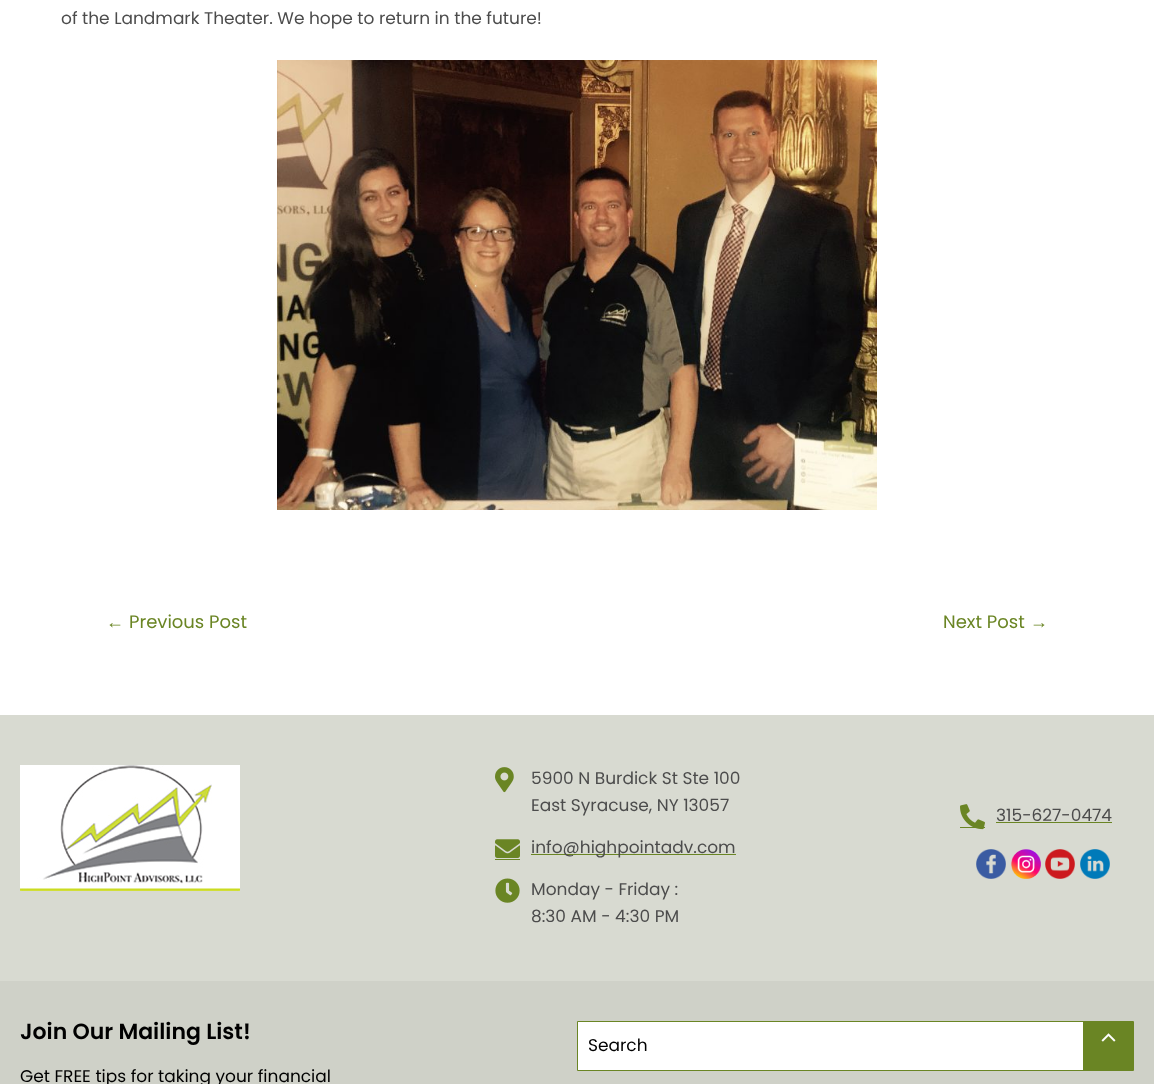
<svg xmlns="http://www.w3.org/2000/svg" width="1154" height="1084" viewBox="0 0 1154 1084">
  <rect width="100%" height="100%" fill="#fff"/>
  <image x="277" y="60" width="600" height="450" href="img/1.png"/>
  <path d="M0 715h1154v266H0z" fill="#d8dad1"/>
  <image x="20" y="765" width="220" height="126" href="img/2.png"/>
  <image x="495" y="767" width="19" height="26" href="img/3.png"/>
  <image x="495" y="839" width="25" height="19" href="img/4.png"/>
  <path d="M495 859h25v1H495z" fill="#6a8524"/>
  <path d="M531 854h205v1H531z" fill="#6a8524"/>
  <image x="495" y="878" width="25" height="25" href="img/5.png"/>
  <path d="M960 827h25v1H960z" fill="#6a8524"/>
  <image x="960" y="804" width="25" height="26" href="img/6.png"/>
  <path d="M996 822h116v1H996z" fill="#6a8524"/>
  <image x="976" y="849" width="30" height="30" href="img/7.png"/>
  <image x="1011" y="849" width="30" height="30" href="img/8.png"/>
  <image x="1045" y="849" width="30" height="30" href="img/9.png"/>
  <image x="1080" y="849" width="30" height="30" href="img/10.png"/>
  <path d="M0 981h1154v103H0z" fill="#cfd1c8"/>
  <path d="M577.5 1021.5h556v49H577.5z" fill="none" stroke="#6a8524"/>
  <path d="M578 1022h505v48H578z" fill="#fff"/>
  <path d="M1083 1022h50v48H1083z" fill="#6a8524"/>
  <image x="1101" y="1033" width="15" height="9" href="img/11.png"/>
  <text x="61" y="24" font-family="Poppins" font-size="17" fill="#4c4c4c">of the Landmark Theater. We hope to return in the future!</text>
  <text x="106" y="628" font-family="Liberation Sans" font-size="18" fill="#6a8524">←</text>
  <g font-family="Poppins" font-size="18" fill="#6a8524">
    <text x="129" y="628">Previous Post</text>
    <text x="943" y="628">Next Post</text>
  </g>
  <text x="1030" y="628" font-family="Liberation Sans" font-size="18" fill="#6a8524">→</text>
  <g font-family="Poppins" font-size="17" fill="#4c4c4c">
    <text x="531" y="784">5900 N Burdick St Ste 100</text>
    <text x="531" y="811">East Syracuse, NY 13057</text>
    <text x="531" y="853">info@highpointadv.com</text>
    <text x="531" y="895">Monday - Friday :</text>
    <text x="531" y="922">8:30 AM - 4:30 PM</text>
    <text x="996" y="821">315-627-0474</text>
  </g>
  <text x="20" y="1039" font-family="Poppins" font-size="22" font-weight="600" fill="#000">Join Our Mailing List!</text>
  <g font-family="Poppins" font-size="17" fill="#000">
    <text x="20" y="1082">Get FREE tips for taking your financial</text>
    <text x="588" y="1051">Search</text>
  </g>
</svg>
